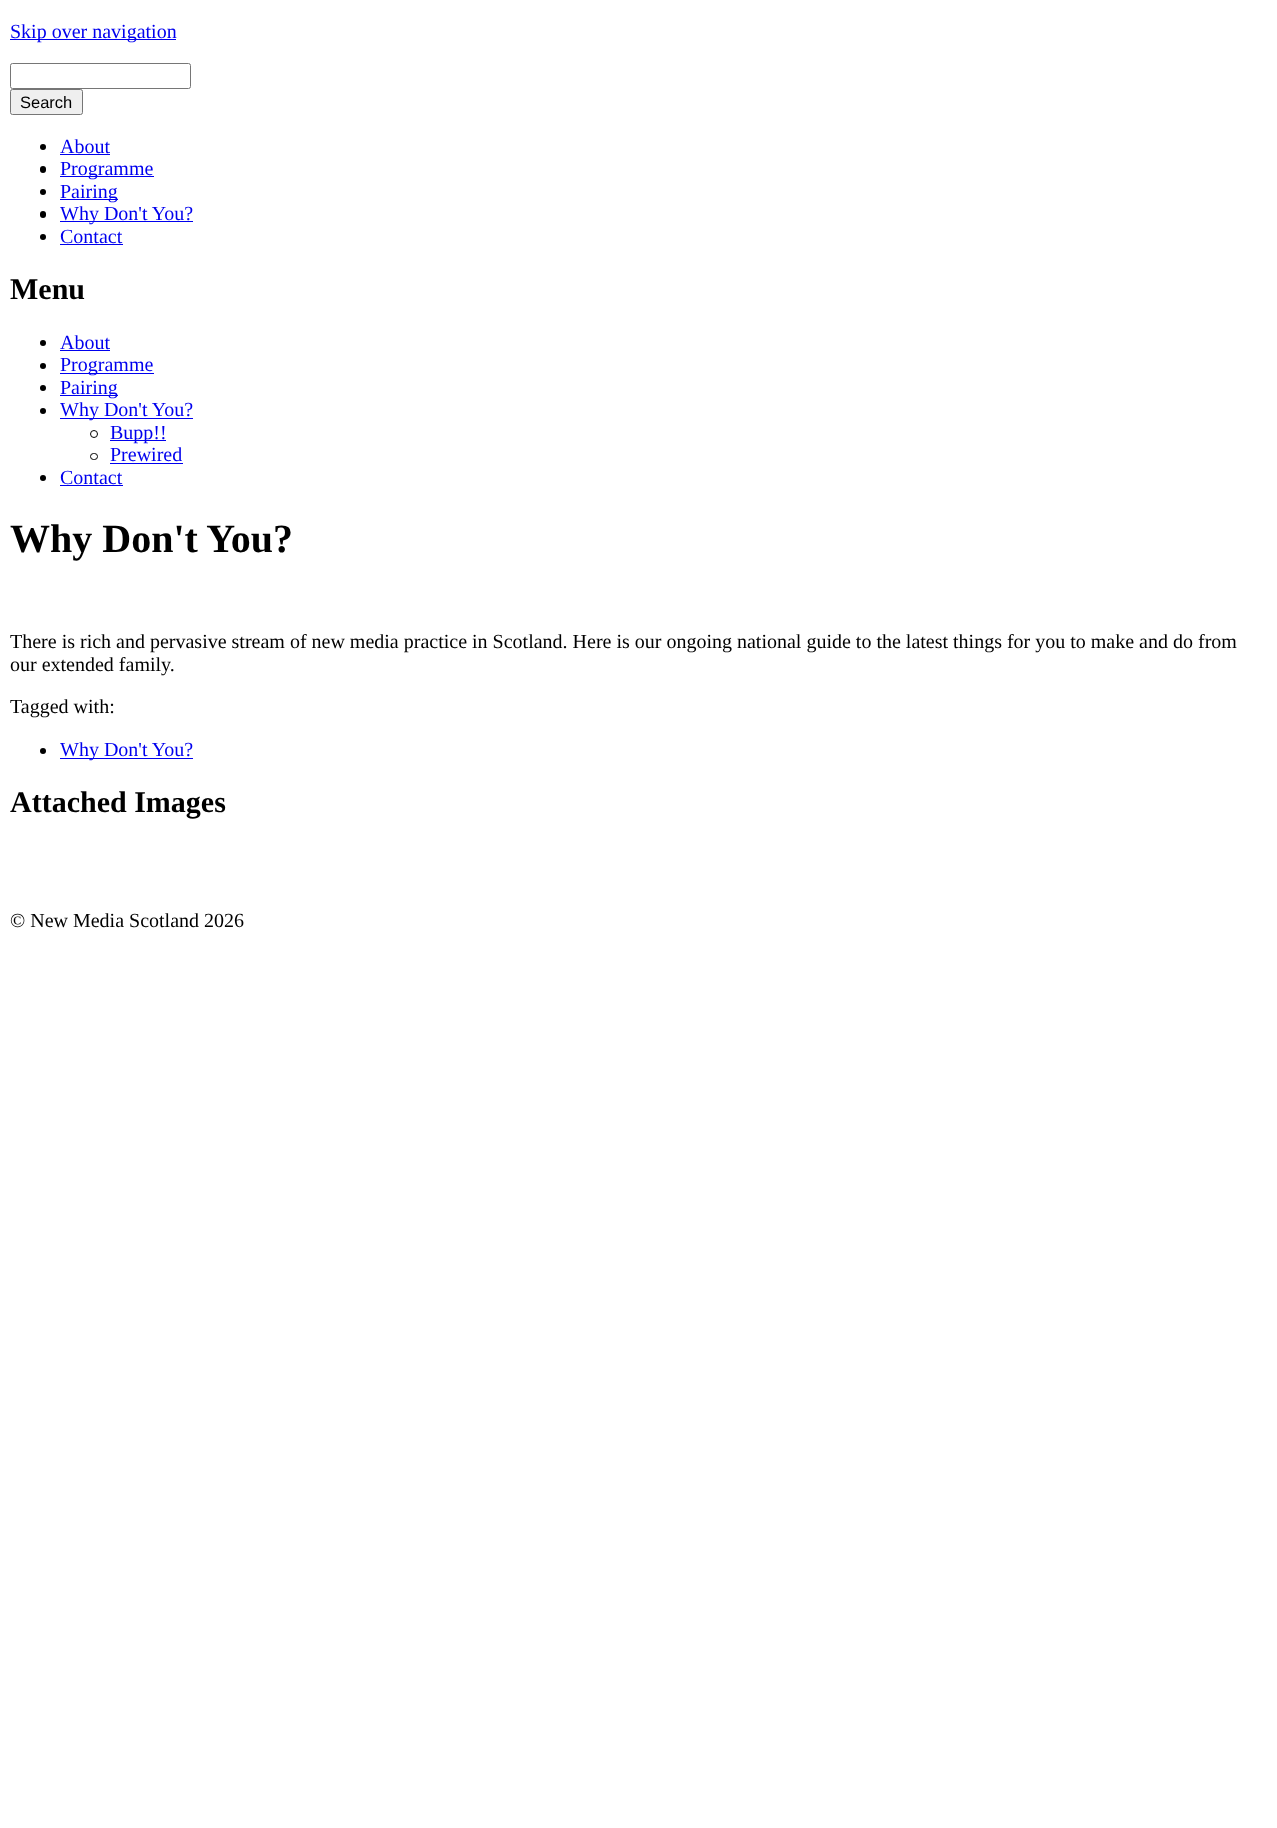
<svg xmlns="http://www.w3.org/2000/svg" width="1277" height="1828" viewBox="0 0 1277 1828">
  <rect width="100%" height="100%" fill="#fff"/>
  <path d="M10 39h166v1H10z" fill="#00e"/>
  <rect x="10.5" y="63.5" width="180" height="25" rx="2" fill="none" stroke="#767676"/>
  <rect x="10.5" y="89.5" width="72" height="25" rx="2" fill="#efefef" stroke="#767676"/>
  <circle cx="43" cy="147" r="3" fill="#000"/>
  <path d="M60 154h50v1H60z" fill="#00e"/>
  <rect x="40" y="166" width="6" height="7" rx="3" fill="#000"/>
  <path d="M60 176h94v1H60z" fill="#00e"/>
  <circle cx="43" cy="192" r="3" fill="#000"/>
  <path d="M60 199h58v1H60z" fill="#00e"/>
  <rect x="40" y="211" width="6" height="7" rx="3" fill="#000"/>
  <path d="M60 221h133v1H60z" fill="#00e"/>
  <circle cx="43" cy="237" r="3" fill="#000"/>
  <path d="M60 244h63v1H60z" fill="#00e"/>
  <circle cx="43" cy="343" r="3" fill="#000"/>
  <path d="M60 350h50v1H60z" fill="#00e"/>
  <circle cx="43" cy="366" r="3" fill="#000"/>
  <path d="M60 373h94v1H60z" fill="#00e"/>
  <circle cx="43" cy="388" r="3" fill="#000"/>
  <path d="M60 395h58v1H60z" fill="#00e"/>
  <circle cx="43" cy="411" r="3" fill="#000"/>
  <path d="M60 418h133v1H60z" fill="#00e"/>
  <circle cx="94" cy="434" r="3.5" fill="none" stroke="#000"/>
  <path d="M110 440h56v1H110z" fill="#00e"/>
  <rect x="90.5" y="453.5" width="7" height="6" rx="3" fill="none" stroke="#000"/>
  <path d="M110 463h73v1H110z" fill="#00e"/>
  <circle cx="43" cy="478" r="3" fill="#000"/>
  <path d="M60 485h63v1H60z" fill="#00e"/>
  <circle cx="43" cy="751" r="3" fill="#000"/>
  <path d="M60 758h133v1H60z" fill="#00e"/>
  <text x="10" y="38" font-family="Liberation Serif" font-size="20" fill="#00e">Skip over navigation</text>
  <text x="20" y="108" font-family="Liberation Sans" font-size="16.5" fill="#000">Search</text>
  <g font-family="Liberation Serif" font-size="20" fill="#00e">
    <text x="60" y="153">About</text>
    <text x="60" y="175">Programme</text>
    <text x="60" y="198">Pairing</text>
    <text x="60" y="220">Why Don't You?</text>
    <text x="60" y="243">Contact</text>
  </g>
  <text x="10" y="299" font-family="Liberation Serif" font-size="30" font-weight="bold" fill="#000">Menu</text>
  <g font-family="Liberation Serif" font-size="20" fill="#00e">
    <text x="60" y="349">About</text>
    <text x="60" y="371">Programme</text>
    <text x="60" y="394">Pairing</text>
    <text x="60" y="416">Why Don't You?</text>
    <text x="110" y="439">Bupp!!</text>
    <text x="110" y="461">Prewired</text>
    <text x="60" y="484">Contact</text>
  </g>
  <text x="10" y="552" font-family="Liberation Serif" font-size="40" font-weight="bold" fill="#000">Why Don't You?</text>
  <g font-family="Liberation Serif" font-size="20" fill="#000">
    <text x="10" y="648">There is rich and pervasive stream of new media practice in Scotland. Here is our ongoing national guide to the latest things for you to make and do from</text>
    <text x="10" y="671">our extended family.</text>
    <text x="10" y="713">Tagged with:</text>
  </g>
  <text x="60" y="756" font-family="Liberation Serif" font-size="20" fill="#00e">Why Don't You?</text>
  <text x="10" y="812" font-family="Liberation Serif" font-size="30" font-weight="bold" fill="#000">Attached Images</text>
  <text x="10" y="927" font-family="Liberation Serif" font-size="20" fill="#000">© New Media Scotland 2026</text>
</svg>
